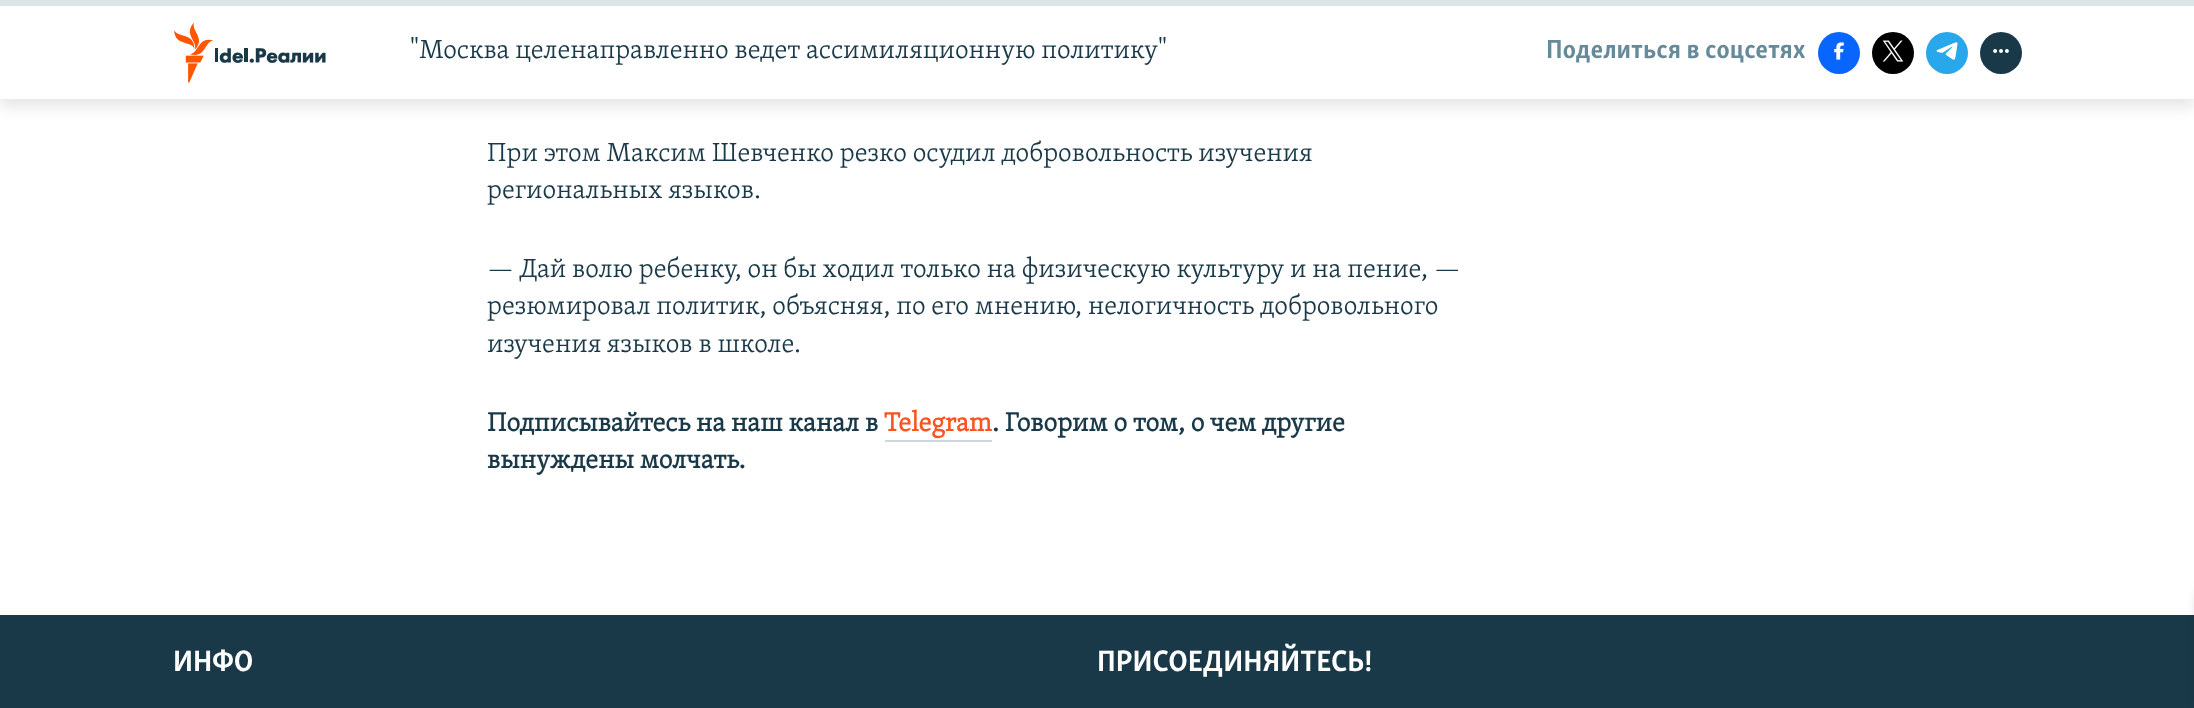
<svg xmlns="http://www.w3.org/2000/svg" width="2194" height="708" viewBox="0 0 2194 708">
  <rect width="100%" height="100%" fill="#fff"/>
  <path d="M0 8h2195v99H0z" fill="#0000001a" filter="blur(7.5px)"/>
  <path d="M0 6h2194v93H0z" fill="#fff"/>
  <path d="M0 0h2194v6H0z" fill="#dce4e8"/>
  <image x="174" y="23" width="152" height="60" href="img/1.png"/>
  <circle cx="1839" cy="53" r="21" fill="#0866ff"/>
  <image x="1834" y="42" width="10" height="18" href="img/2.png"/>
  <circle cx="1893" cy="53" r="21" fill="#000"/>
  <image x="1882" y="40" width="22" height="22" href="img/3.png"/>
  <circle cx="1947" cy="53" r="21" fill="#28a8ea"/>
  <image x="1936" y="42" width="22" height="18" href="img/4.png"/>
  <circle cx="2001" cy="53" r="21" fill="#1a3948"/>
  <image x="1993" y="49" width="16" height="4" href="img/5.png"/>
  <path d="M885 440h107v2H885z" fill="#ccd8de"/>
  <path d="M0 615h2194v93H0z" fill="#1a3948"/>
  <rect x="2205" y="591" width="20" height="117" rx="8" fill="#000000d9" filter="blur(7.5px)"/>
  <text x="410" y="58" font-family="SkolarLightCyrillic" font-size="27" font-weight="300" fill="#1a3948">"Москва целенаправленно ведет ассимиляционную политику"</text>
  <text x="1546" y="58" font-family="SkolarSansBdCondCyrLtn" font-size="27" font-weight="bold" fill="#678a9b">Поделиться в соцсетях</text>
  <g font-family="SkolarLightCyrillic" font-size="27" font-weight="300" fill="#1a3948">
    <text x="487" y="161">При этом Максим Шевченко резко осудил добровольность изучения</text>
    <text x="487" y="198">региональных языков.</text>
    <text x="487" y="277">— Дай волю ребенку, он бы ходил только на физическую культуру и на пение, —</text>
    <text x="487" y="314">резюмировал политик, объясняя, по его мнению, нелогичность добровольного</text>
    <text x="487" y="352">изучения языков в школе.</text>
  </g>
  <text x="487" y="431" font-family="SkolarLightCyrillic" font-size="27" font-weight="bold" fill="#1a3948">Подписывайтесь на наш канал в</text>
  <text x="884" y="431" font-family="SkolarLightCyrillic" font-size="27" font-weight="bold" fill="#fa5420">Telegram</text>
  <g font-family="SkolarLightCyrillic" font-size="27" font-weight="bold" fill="#1a3948">
    <text x="992" y="431">. Говорим о том, о чем другие</text>
    <text x="487" y="468">вынуждены молчать.</text>
  </g>
  <g font-family="SkolarSansBdCondCyrLtn" font-size="30.4" font-weight="bold" fill="#fff">
    <text x="173" y="671">ИНФО</text>
    <text x="1097" y="671">ПРИСОЕДИНЯЙТЕСЬ!</text>
  </g>
</svg>
